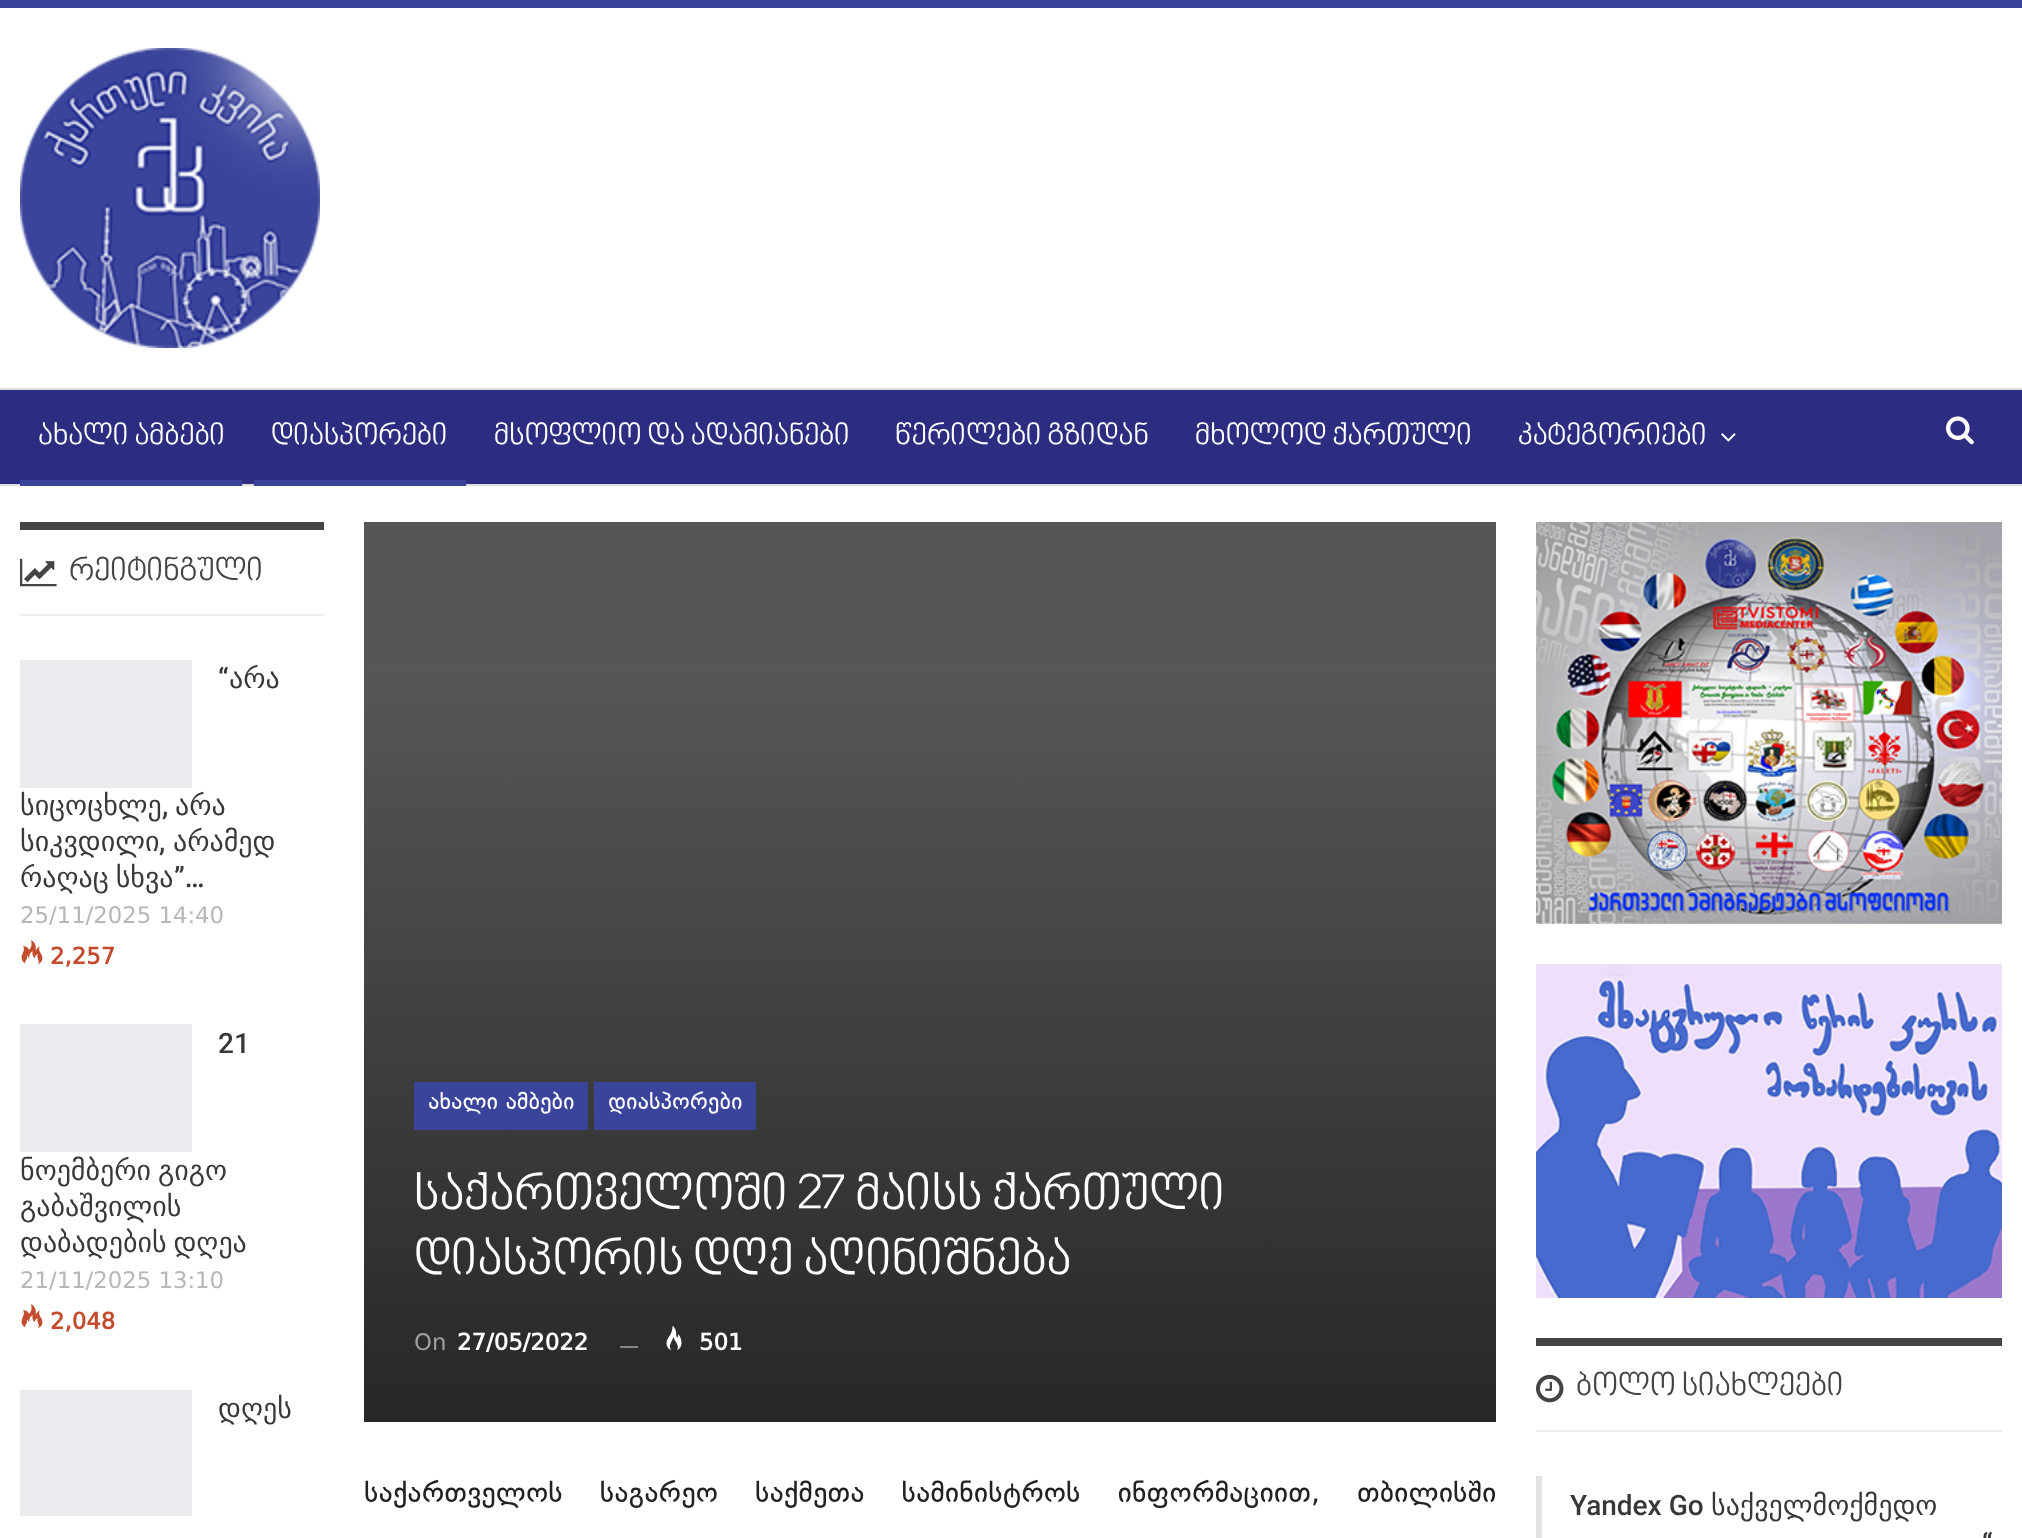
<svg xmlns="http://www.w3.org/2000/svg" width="2022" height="1538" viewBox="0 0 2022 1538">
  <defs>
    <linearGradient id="g1" gradientUnits="userSpaceOnUse" x1="930" y1="662" x2="930" y2="1422"><stop offset="0" stop-color="#575757"/><stop offset="1" stop-color="#272727"/></linearGradient>
  </defs>
  <rect width="100%" height="100%" fill="#fff"/>
  <path d="M0 0h2022v8H0z" fill="#3a449b"/>
  <image x="20" y="48" width="300" height="300" href="img/1.png"/>
  <path d="M0 390h2022v94H0z" fill="#2c2d80"/>
  <path d="M0 388h2022v2H0z" fill="#dedede"/>
  <path d="M0 484h2022v2H0z" fill="#dedede"/>
  <path d="M20 480h222v6H20z" fill="#3a449b"/>
  <path d="M254 480h212v6H254z" fill="#3a449b"/>
  <image x="1721" y="433" width="15" height="9" href="img/2.png"/>
  <image x="1946" y="416" width="28" height="29" href="img/3.png"/>
  <path d="M20 522h304v8H20z" fill="#444"/>
  <image x="20" y="558" width="37" height="29" href="img/4.png"/>
  <path d="M20 614h304v2H20z" fill="#ededed"/>
  <path d="M20 660h172v128H20z" fill="#e9ebee"/>
  <image x="21" y="940" width="22" height="24" href="img/5.png"/>
  <path d="M20 1024h172v128H20z" fill="#e9ebee"/>
  <image x="21" y="1304" width="22" height="24" href="img/5.png"/>
  <path d="M20 1390h172v126H20z" fill="#e9ebee"/>
  <path d="M364 522h1132v140H364z" fill="#565656"/>
  <path d="M364 662h1132v760H364z" fill="url(#g1)"/>
  <path d="M414 1082h174v48H414z" fill="#3a449b"/>
  <path d="M594 1082h162v48H594z" fill="#3a449b"/>
  <path d="M620 1346h18v2H620z" fill="#878787"/>
  <image x="666" y="1326" width="16" height="24" href="img/6.png"/>
  <image x="1536" y="522" width="466" height="402" href="img/7.png"/>
  <image x="1536" y="964" width="466" height="334" href="img/8.png"/>
  <path d="M1536 1338h466v8H1536z" fill="#444"/>
  <image x="1536" y="1374" width="28" height="29" href="img/9.png"/>
  <path d="M1536 1430h466v2H1536z" fill="#ededed"/>
  <path d="M1536 1476h6v62H1536z" fill="#e3e3e3"/>
  <g font-family="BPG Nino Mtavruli" font-size="30" fill="#fff">
    <text x="38" y="446">ახალი ამბები</text>
    <text x="271" y="446">დიასპორები</text>
    <text x="494" y="446">მსოფლიო და ადამიანები</text>
    <text x="895" y="446">წერილები გზიდან</text>
    <text x="1195" y="446">მხოლოდ ქართული</text>
    <text x="1518" y="446">კატეგორიები</text>
  </g>
  <text x="69" y="582" font-family="BPG Nino Mtavruli" font-size="32" fill="#444">რეიტინგული</text>
  <text x="218" y="688" font-family="Roboto" font-size="28" font-weight="500" fill="#383838">“</text>
  <g font-family="'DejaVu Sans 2'" font-size="28" fill="#383838">
    <text x="229" y="688">არა</text>
    <text x="20" y="815">სიცოცხლე</text>
  </g>
  <text x="162" y="815" font-family="Roboto" font-size="28" font-weight="500" fill="#383838">,</text>
  <g font-family="'DejaVu Sans 2'" font-size="28" fill="#383838">
    <text x="175" y="815">არა</text>
    <text x="20" y="851">სიკვდილი</text>
  </g>
  <text x="159" y="851" font-family="Roboto" font-size="28" font-weight="500" fill="#383838">,</text>
  <g font-family="'DejaVu Sans 2'" font-size="28" fill="#383838">
    <text x="173" y="851">არამედ</text>
    <text x="20" y="887" word-spacing="-2">რაღაც სხვა</text>
  </g>
  <text x="174" y="887" font-family="Roboto" font-size="28" font-weight="500" fill="#383838">”…</text>
  <text x="20" y="923" font-family="DejaVu Sans" font-size="24" fill="#b7b7b7">25/11/2025 14:40</text>
  <text x="50" y="964" font-family="DejaVu Sans" font-size="24" font-weight="bold" fill="#c44b2d">2,257</text>
  <text x="218" y="1053" font-family="Roboto" font-size="28" font-weight="500" fill="#383838">21</text>
  <g font-family="'DejaVu Sans 2'" font-size="28" fill="#383838">
    <text x="20" y="1180" word-spacing="-2">ნოემბერი გიგო</text>
    <text x="20" y="1216">გაბაშვილის</text>
    <text x="20" y="1252" word-spacing="-2">დაბადების დღეა</text>
  </g>
  <text x="20" y="1288" font-family="DejaVu Sans" font-size="24" fill="#b7b7b7">21/11/2025 13:10</text>
  <text x="50" y="1329" font-family="DejaVu Sans" font-size="24" font-weight="bold" fill="#c44b2d">2,048</text>
  <text x="218" y="1418" font-family="'DejaVu Sans 2'" font-size="28" fill="#383838">დღეს</text>
  <g font-family="DejaVu Sans" font-size="24" fill="#fff">
    <text x="428" y="1109">ახალი ამბები</text>
    <text x="608" y="1109">დიასპორები</text>
  </g>
  <g font-family="BPG Nino Mtavruli" font-size="50" fill="#fff">
    <text x="414" y="1212">საქართველოში 27 მაისს ქართული</text>
    <text x="414" y="1277">დიასპორის დღე აღინიშნება</text>
  </g>
  <text x="414" y="1350" font-family="DejaVu Sans" font-size="24" fill="#a0a0a0">On</text>
  <g font-family="DejaVu Sans" font-size="24" font-weight="bold" fill="#fff">
    <text x="457" y="1350">27/05/2022</text>
    <text x="699" y="1350">501</text>
  </g>
  <text x="364" y="1502" word-spacing="28" font-family="DejaVu Sans" font-size="30" fill="#222">საქართველოს საგარეო საქმეთა სამინისტროს ინფორმაციით, თბილისში</text>
  <text x="1576" y="1397" font-family="BPG Nino Mtavruli" font-size="32" fill="#444">ბოლო სიახლეები</text>
  <text x="1570" y="1515" font-family="Roboto" font-size="28" font-weight="500" fill="#383838">Yandex Go</text>
  <text x="1711" y="1515" font-family="'DejaVu Sans 2'" font-size="28" fill="#383838">საქველმოქმედო</text>
  <text x="1982" y="1553" font-family="Roboto" font-size="28" font-weight="500" fill="#383838">“</text>
</svg>
